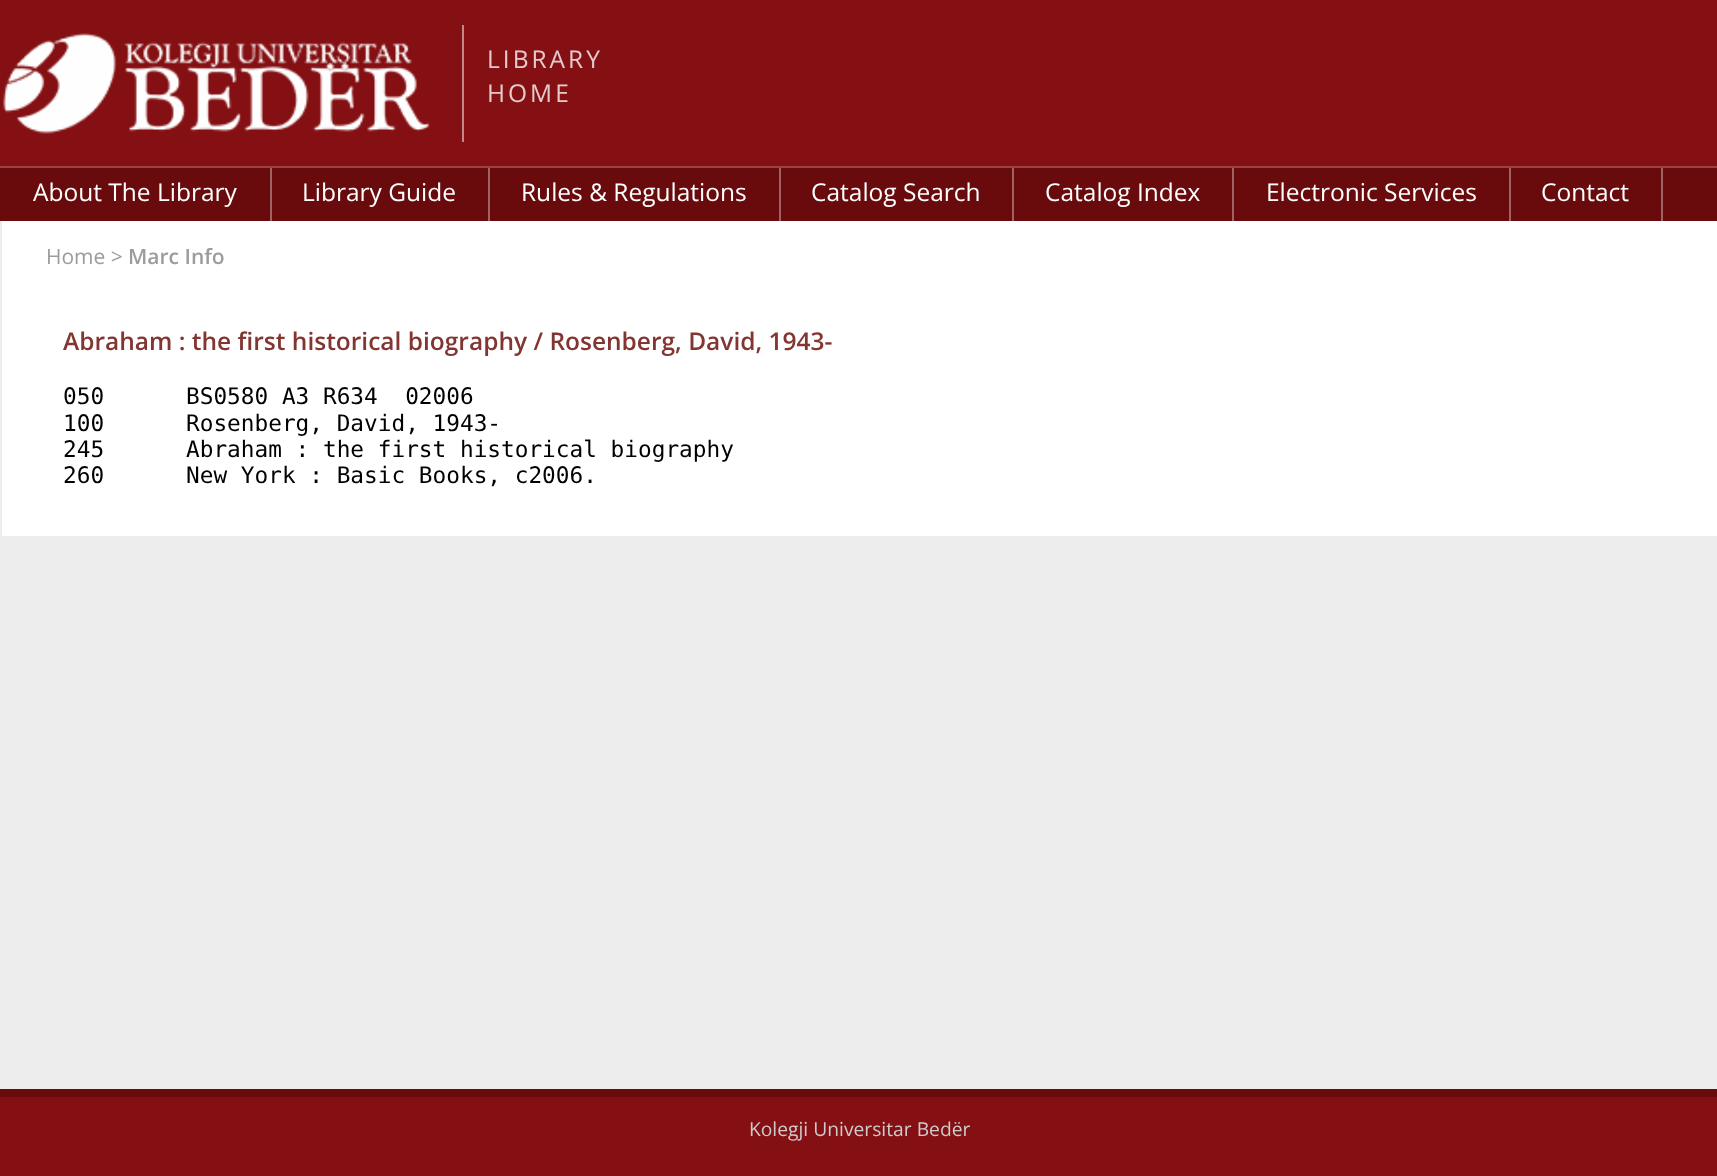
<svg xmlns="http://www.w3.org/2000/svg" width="1717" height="1176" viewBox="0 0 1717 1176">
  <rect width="100%" height="100%" fill="#ededed"/>
  <path d="M0 0h1717v166H0z" fill="#851013"/>
  <path d="M0 166h1717v2H0z" fill="#9d4042"/>
  <image x="3" y="33" width="427" height="101" href="img/1.png"/>
  <path d="M462 25h2v117H462z" fill="#c28889"/>
  <path d="M0 168h1717v53H0z" fill="#690b0d"/>
  <path d="M270 168h2v53H270z" fill="#9f6364"/>
  <path d="M488 168h2v53H488z" fill="#9f6364"/>
  <path d="M779 168h2v53H779z" fill="#9f6364"/>
  <path d="M1012 168h2v53H1012z" fill="#9f6364"/>
  <path d="M1232 168h2v53H1232z" fill="#9f6364"/>
  <path d="M1509 168h2v53H1509z" fill="#9f6364"/>
  <path d="M1661 168h2v53H1661z" fill="#9f6364"/>
  <path d="M2 221h1715v315H2z" fill="#fff"/>
  <path d="M0 1097h1717v79H0z" fill="#851013"/>
  <path d="M0 1089h1717v8H0z" fill="#690b0d"/>
  <g font-family="Open Sans" font-size="24.5" letter-spacing="3" fill="#e3cacb">
    <text x="487" y="68">LIBRARY</text>
    <text x="487" y="102">HOME</text>
  </g>
  <g font-family="Open Sans" font-size="24.5" fill="#fff">
    <text x="33" y="201">About The Library</text>
    <text x="302" y="201">Library Guide</text>
    <text x="521" y="201">Rules &amp; Regulations</text>
    <text x="811" y="201">Catalog Search</text>
    <text x="1045" y="201">Catalog Index</text>
    <text x="1266" y="201">Electronic Services</text>
    <text x="1541" y="201">Contact</text>
  </g>
  <text x="46" y="264" font-family="Open Sans" font-size="21" fill="#9e9b9b">Home &gt;</text>
  <text x="128" y="264" font-family="Open Sans" font-size="21" font-weight="600" fill="#9e9b9b">Marc Info</text>
  <text x="63" y="350" font-family="Open Sans" font-size="24.5" font-weight="600" fill="#823531">Abraham : the first historical biography / Rosenberg, David, 1943-</text>
  <g font-family="DejaVu Sans Mono" font-size="22.75" fill="#000">
    <text x="63" y="404">050</text>
    <text x="186" y="404" xml:space="preserve">BS0580 A3 R634  02006</text>
    <text x="63" y="431">100</text>
    <text x="186" y="431">Rosenberg, David, 1943-</text>
    <text x="63" y="457">245</text>
    <text x="186" y="457">Abraham : the first historical biography</text>
    <text x="63" y="483">260</text>
    <text x="186" y="483">New York : Basic Books, c2006.</text>
  </g>
  <text x="749" y="1136" font-family="Open Sans" font-size="19.25" fill="#ccc">Kolegji Universitar Bedër</text>
</svg>
